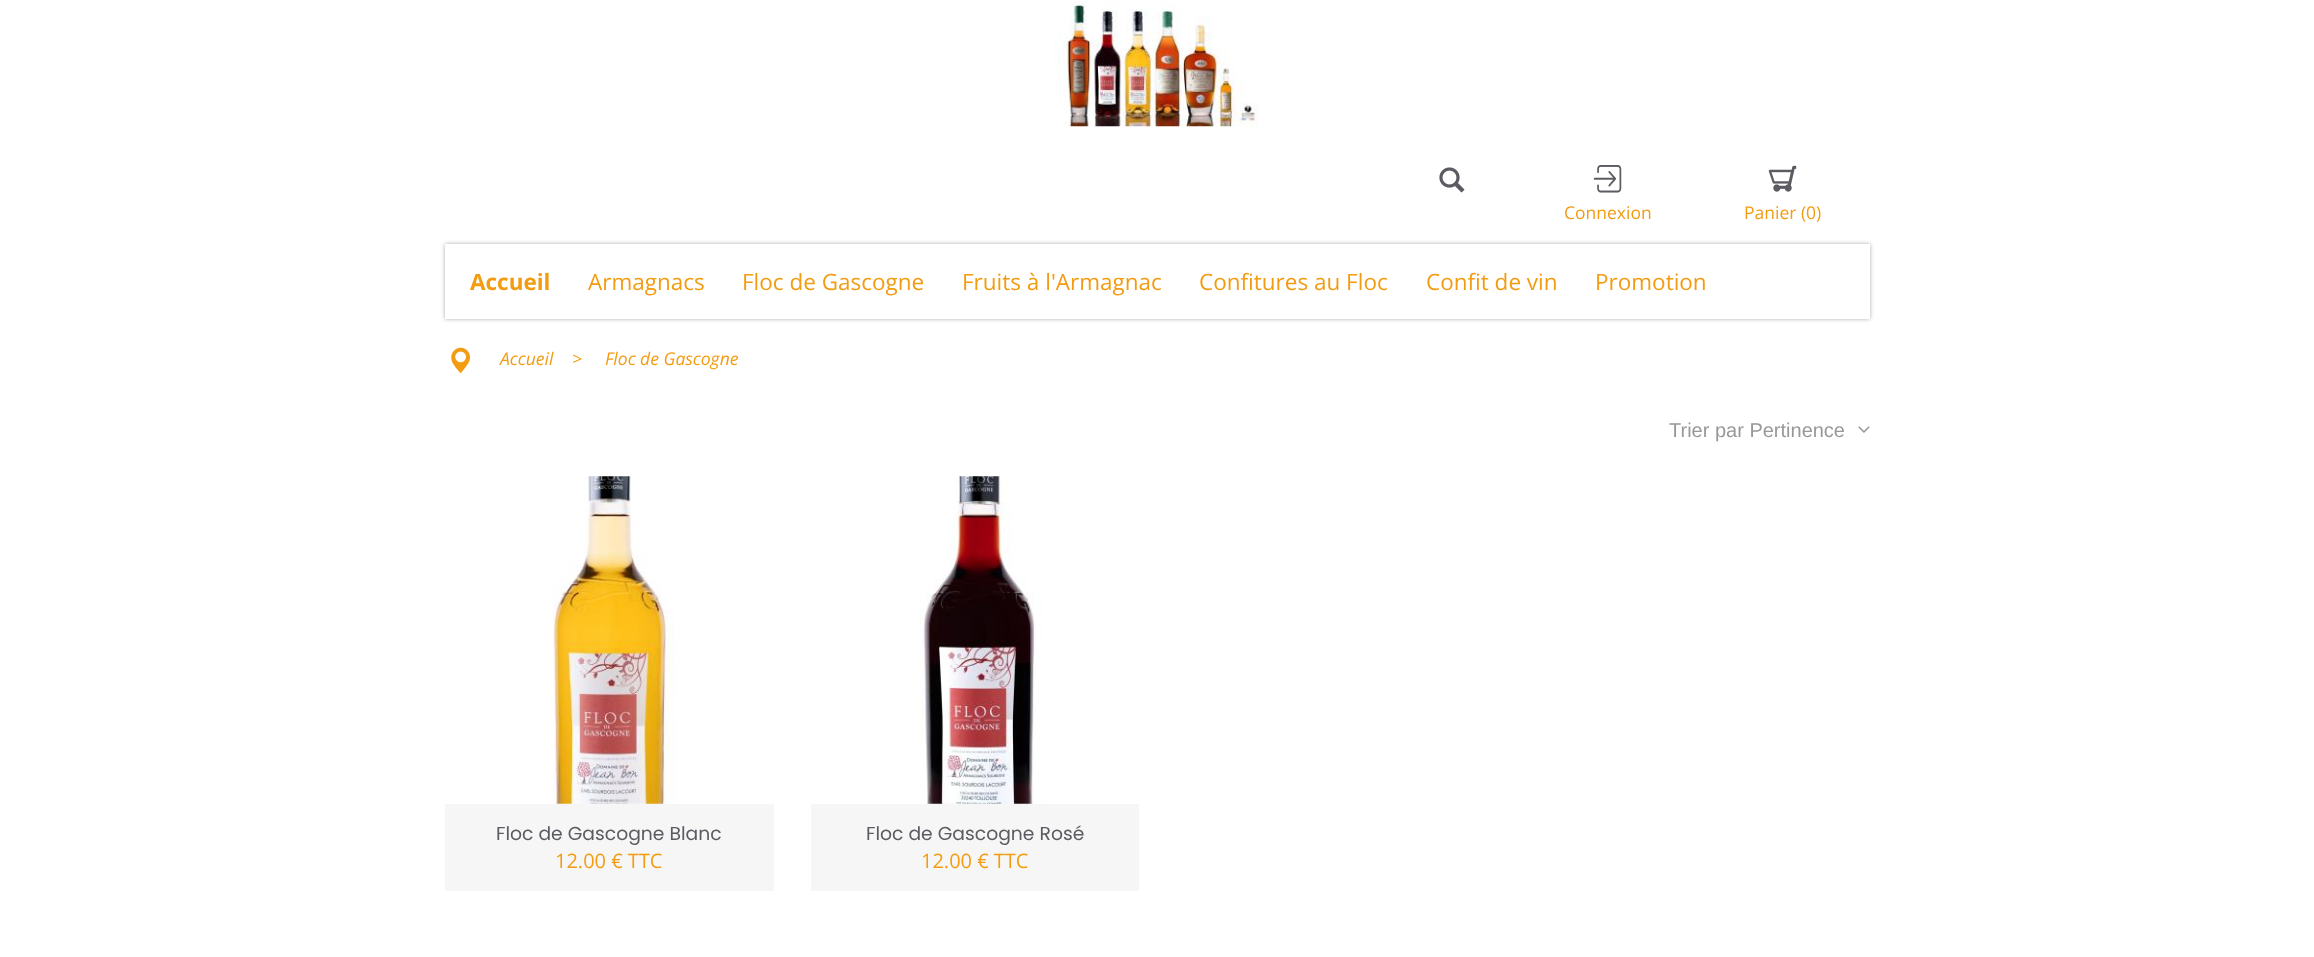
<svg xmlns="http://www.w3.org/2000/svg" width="2314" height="957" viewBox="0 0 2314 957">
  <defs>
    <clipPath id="clip1"><path d="M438 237H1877V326H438ZM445 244H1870V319H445Z" clip-rule="evenodd"/></clipPath>
  </defs>
  <rect width="100%" height="100%" fill="#fff"/>
  <image x="1055" y="1" width="204" height="126" href="img/1.png"/>
  <image x="1439" y="167" width="26" height="26" href="img/2.png"/>
  <image x="1593" y="165" width="29" height="28" href="img/3.png"/>
  <image x="1768" y="165" width="29" height="27" href="img/4.png"/>
  <g clip-path="url(#clip1)">
    <path d="M445 244h1425v75H445z" fill="#adadad" filter="blur(2px)"/>
  </g>
  <image x="451" y="347" width="19" height="27" href="img/5.png"/>
  <image x="1858" y="426" width="12" height="7" href="img/6.png"/>
  <image x="553" y="476" width="124" height="328" href="img/7.png"/>
  <path d="M445 804h329v87H445z" fill="#f6f6f6"/>
  <image x="920" y="476" width="122" height="328" href="img/8.png"/>
  <path d="M811 804h328v87H811z" fill="#f6f6f6"/>
  <g font-family="Open Sans" font-size="17.5" fill="#f39c12">
    <text x="1564" y="219">Connexion</text>
    <text x="1744" y="219">Panier (0)</text>
  </g>
  <text x="470" y="290" font-family="Open Sans" font-size="22.5" font-weight="bold" fill="#f39c12">Accueil</text>
  <g font-family="Open Sans" font-size="22.5" fill="#f39c12">
    <text x="588" y="290">Armagnacs</text>
    <text x="742" y="290">Floc de Gascogne</text>
    <text x="962" y="290">Fruits à l'Armagnac</text>
    <text x="1199" y="290">Confitures au Floc</text>
    <text x="1426" y="290">Confit de vin</text>
    <text x="1595" y="290">Promotion</text>
  </g>
  <g font-family="Open Sans" font-size="17.5" font-style="italic" fill="#f39c12">
    <text x="500" y="365">Accueil</text>
    <text x="572" y="365">&gt;</text>
    <text x="605" y="365">Floc de Gascogne</text>
  </g>
  <text x="1669" y="437" font-family="Liberation Sans" font-size="20" fill="#989898">Trier par Pertinence</text>
  <text x="496" y="840" font-family="Poppins" font-size="18.75" fill="#5b5b61">Floc de Gascogne Blanc</text>
  <text x="555" y="868" font-family="Open Sans" font-size="20" fill="#f39c12">12.00 € TTC</text>
  <text x="866" y="840" font-family="Poppins" font-size="18.75" fill="#5b5b61">Floc de Gascogne Rosé</text>
  <text x="921" y="868" font-family="Open Sans" font-size="20" fill="#f39c12">12.00 € TTC</text>
</svg>
